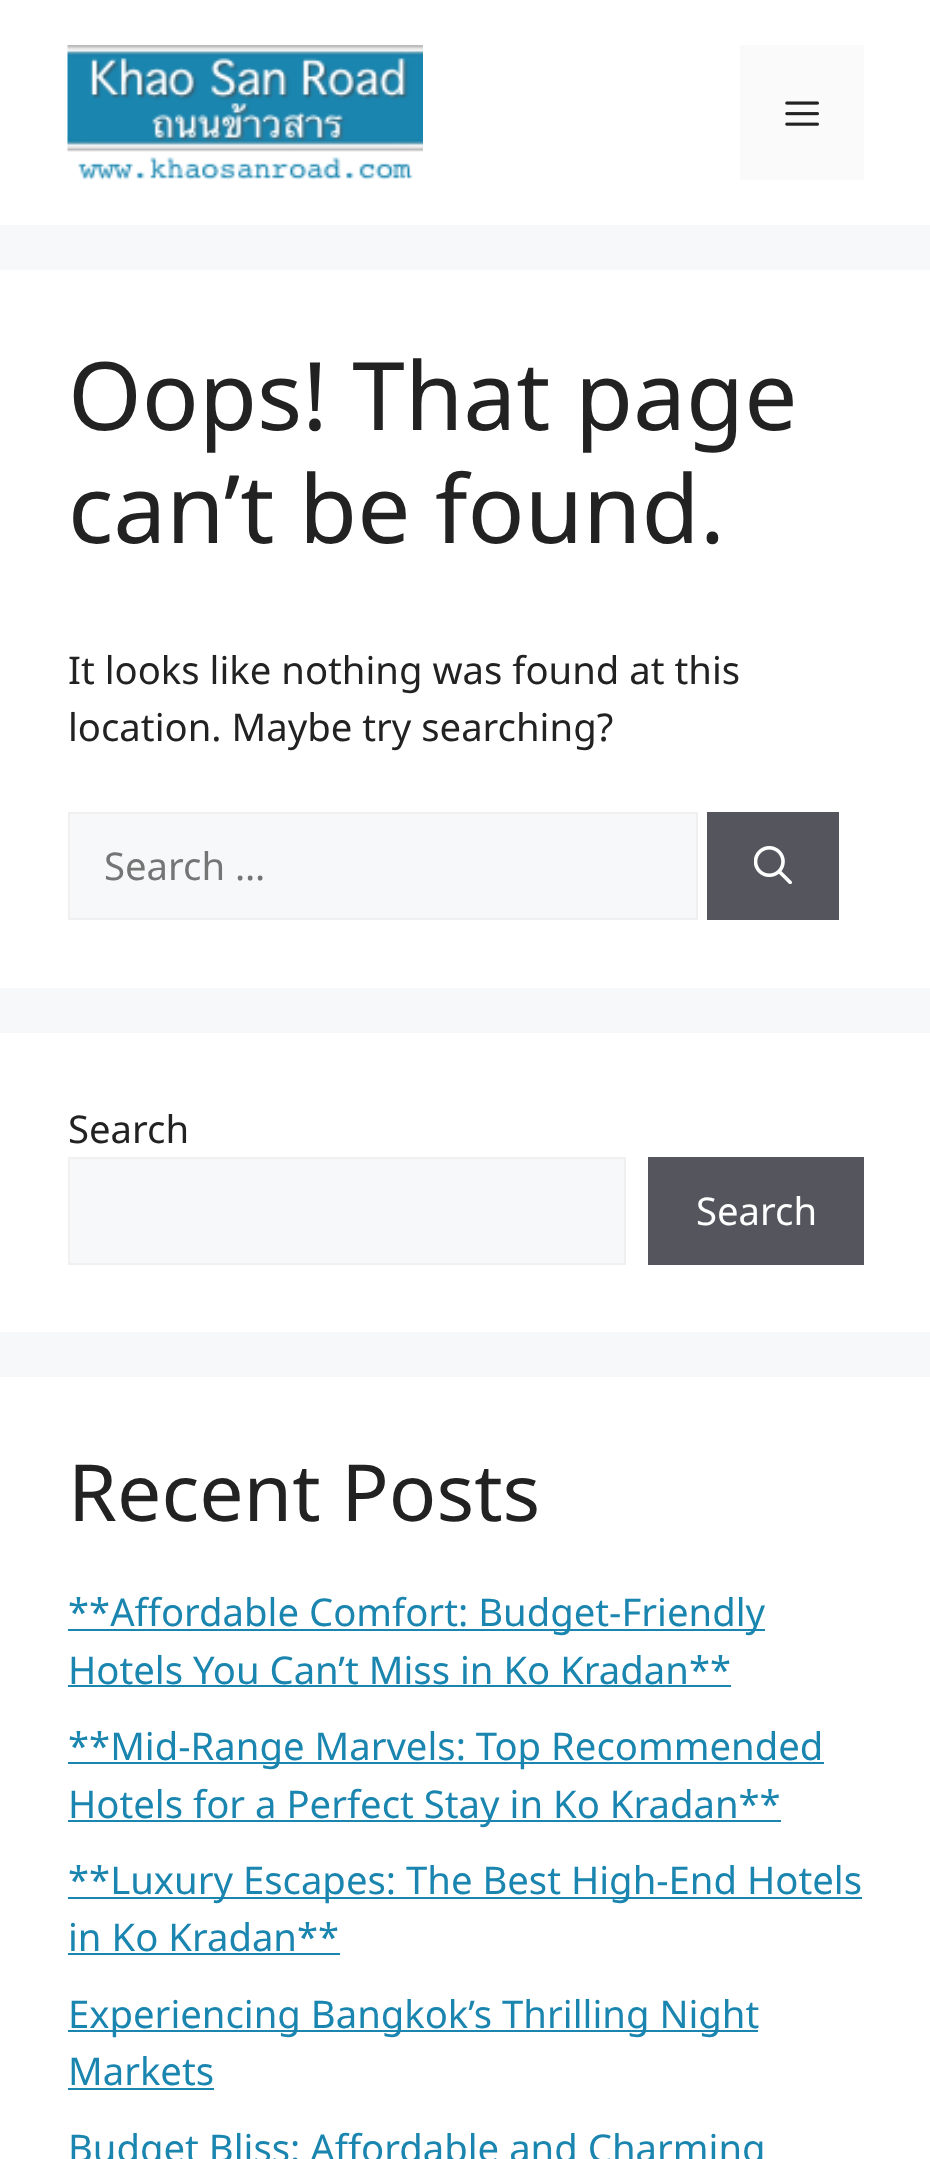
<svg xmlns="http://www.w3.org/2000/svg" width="930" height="2159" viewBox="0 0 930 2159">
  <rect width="100%" height="100%" fill="#f7f8f9"/>
  <path d="M0 0h930v225H0z" fill="#fff"/>
  <image x="67" y="45" width="356" height="135" href="img/1.png"/>
  <path d="M740 45h124v135H740z" fill="#fafafa"/>
  <image x="785" y="101" width="34" height="25" href="img/2.png"/>
  <path d="M0 270h930v718H0z" fill="#fff"/>
  <path d="M69 813h628v106H69z" fill="#f7f8f9" stroke="#f0f0f0" stroke-width="2"/>
  <path d="M707 812h132v108H707z" fill="#55555e"/>
  <image x="754" y="846" width="38" height="38" href="img/3.png"/>
  <path d="M0 1033h930v299H0z" fill="#fff"/>
  <path d="M69 1158h556v106H69z" fill="#f7f8f9" stroke="#f0f0f0" stroke-width="2"/>
  <path d="M648 1157h216v108H648z" fill="#55555e"/>
  <path d="M0 1377h930v782H0z" fill="#fff"/>
  <path d="M68 1629h697v2H68z" fill="#1a85af"/>
  <path d="M68 1685h663v2H68z" fill="#1a85af"/>
  <path d="M68 1762h756v2H68z" fill="#1a85af"/>
  <path d="M68 1820h713v2H68z" fill="#1a85af"/>
  <path d="M68 1897h794v2H68z" fill="#1a85af"/>
  <path d="M68 1953h272v2H68z" fill="#1a85af"/>
  <path d="M68 2030h690v2H68z" fill="#1a85af"/>
  <path d="M68 2088h146v2H68z" fill="#1a85af"/>
  <g font-family="Noto Sans" font-size="94.5" fill="#222">
    <text x="68" y="430">Oops! That page</text>
    <text x="68" y="543">can’t be found.</text>
  </g>
  <g font-family="Noto Sans" font-size="38.25" fill="#222">
    <text x="68" y="684">It looks like nothing was found at this</text>
    <text x="68" y="741">location. Maybe try searching?</text>
  </g>
  <text x="104" y="880" font-family="Noto Sans" font-size="38.25" fill="#757575">Search …</text>
  <text x="68" y="1143" font-family="Noto Sans" font-size="38.25" fill="#222">Search</text>
  <text x="696" y="1225" font-family="Noto Sans" font-size="38.25" fill="#fff">Search</text>
  <text x="68" y="1521" font-family="Noto Sans" font-size="78.75" fill="#222">Recent Posts</text>
  <g font-family="Noto Sans" font-size="38.25" fill="#1a85af">
    <text x="68" y="1626">**Affordable Comfort: Budget-Friendly</text>
    <text x="68" y="1684">Hotels You Can’t Miss in Ko Kradan**</text>
    <text x="68" y="1760">**Mid-Range Marvels: Top Recommended</text>
    <text x="68" y="1818">Hotels for a Perfect Stay in Ko Kradan**</text>
    <text x="68" y="1894">**Luxury Escapes: The Best High-End Hotels</text>
    <text x="68" y="1951">in Ko Kradan**</text>
    <text x="68" y="2028">Experiencing Bangkok’s Thrilling Night</text>
    <text x="68" y="2085">Markets</text>
    <text x="68" y="2162">Budget Bliss: Affordable and Charming</text>
  </g>
</svg>
